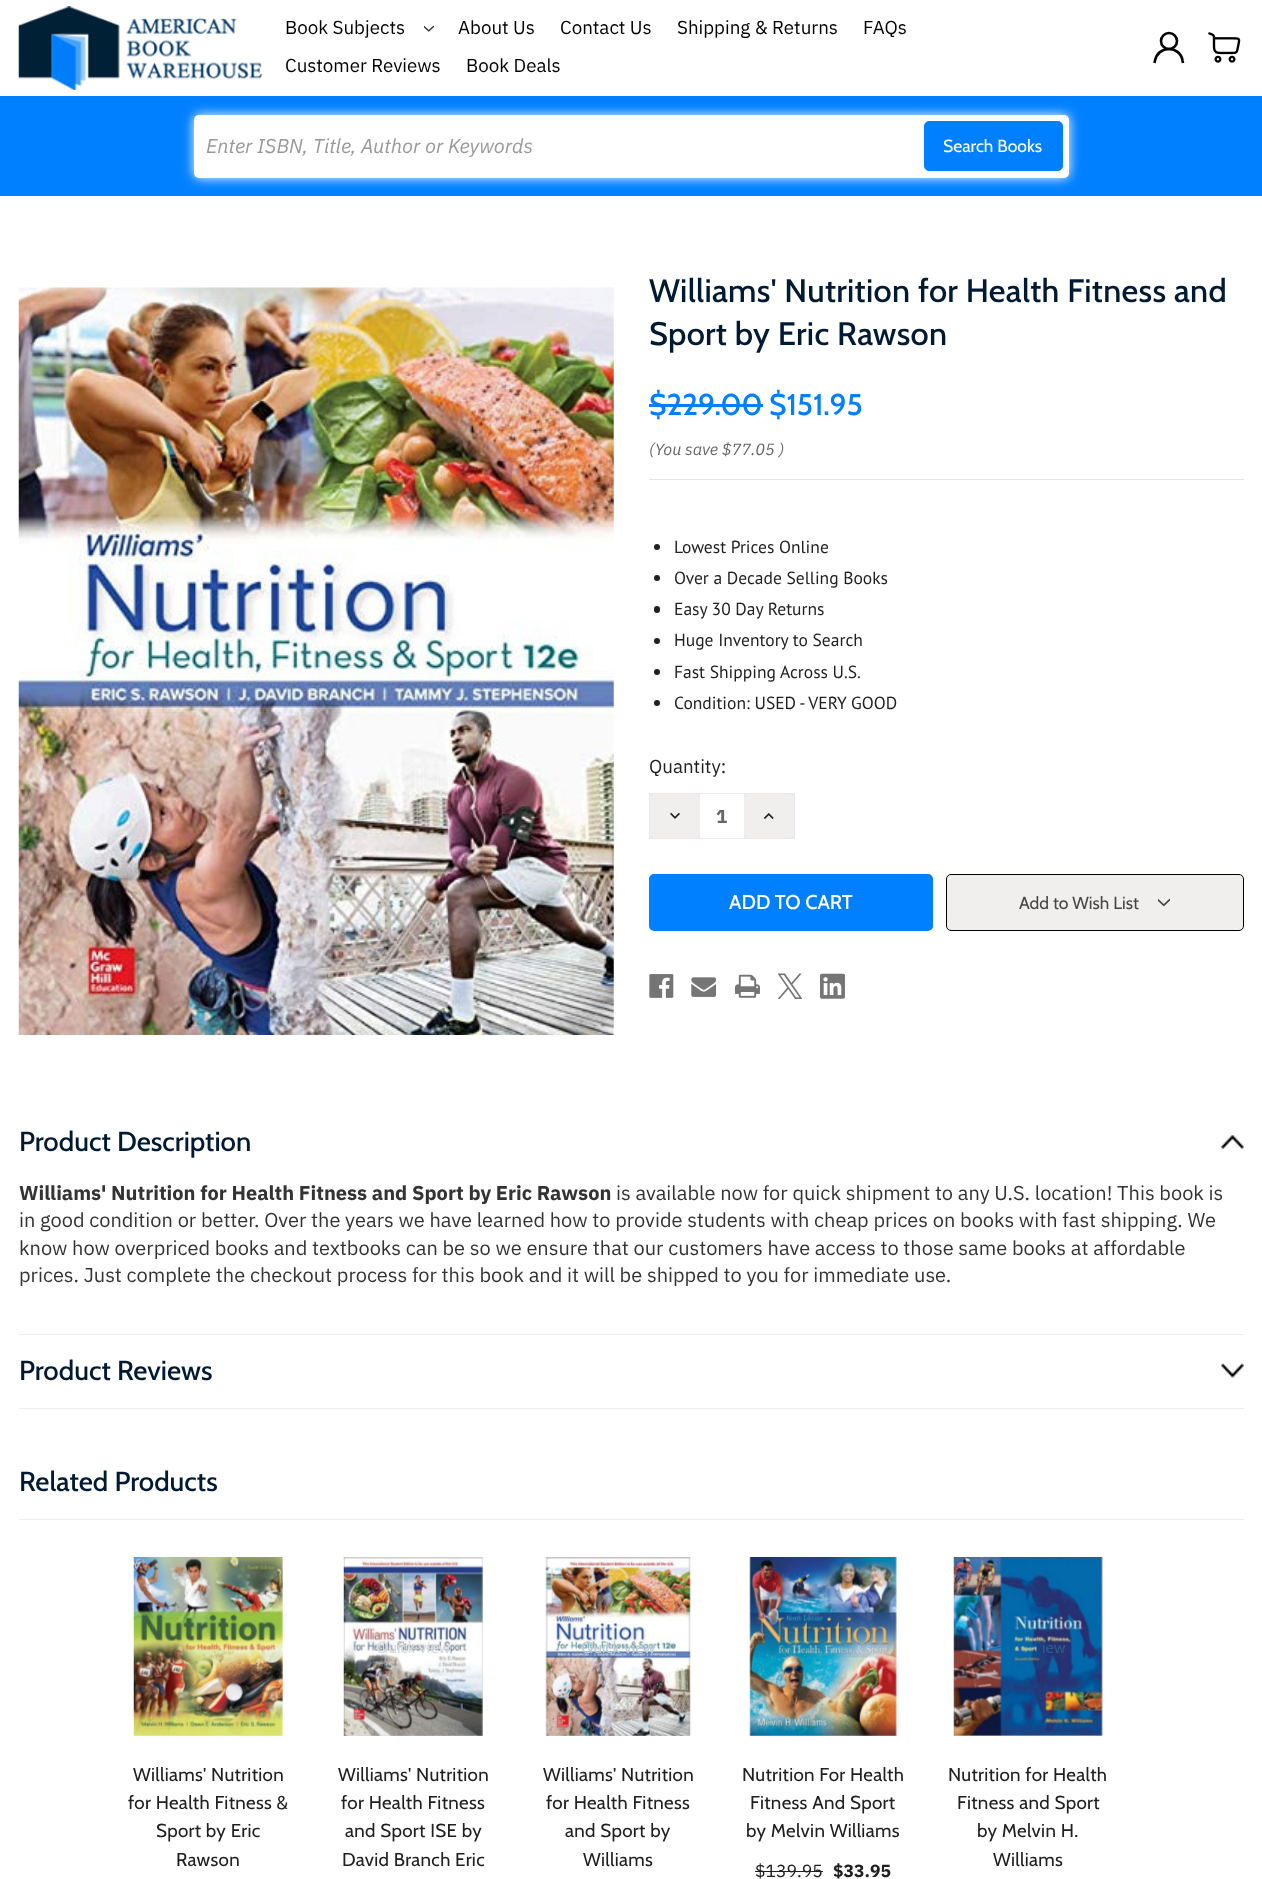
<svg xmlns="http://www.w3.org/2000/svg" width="1262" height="1879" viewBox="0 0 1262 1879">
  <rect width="100%" height="100%" fill="#fff"/>
  <image x="18" y="6" width="245" height="84" href="img/1.png"/>
  <image x="424" y="25" width="10" height="7" href="img/2.png"/>
  <circle cx="1169" cy="41" r="8" fill="none" stroke="#020202" stroke-width="2.6"/>
  <path d="M1154.5 63L1155 60.5C1156.5 53.5 1162 49 1169 49C1175.5 49 1181.5 53.5 1182.5 60.5L1183 63" fill="none" stroke="#020202" stroke-width="2.6"/>
  <image x="1208" y="32" width="33" height="31" href="img/3.png"/>
  <path d="M0 96h1262v100H0z" fill="#0080ff"/>
  <rect x="194" y="115" width="875" height="63" rx="5" fill="#fff" filter="blur(6px)"/>
  <rect x="194" y="115" width="875" height="63" rx="5" fill="#fff"/>
  <rect x="924.5" y="121.5" width="138" height="49" rx="4.5" fill="#0080ff" stroke="#0080ff"/>
  <image x="18" y="287" width="596" height="748" href="img/4.png"/>
  <path d="M649 479h595v1H649z" fill="#e5e5e5"/>
  <path d="M649 404h114v3H649z" fill="#0080ff"/>
  <circle cx="657" cy="547" r="3" fill="#202020"/>
  <circle cx="657" cy="578" r="3" fill="#202020"/>
  <rect x="654" y="606" width="6" height="7" rx="3" fill="#202020"/>
  <circle cx="657" cy="641" r="3" fill="#202020"/>
  <circle cx="657" cy="672" r="3" fill="#202020"/>
  <circle cx="657" cy="703" r="3" fill="#202020"/>
  <path d="M649 793h146v46H649z" fill="#e9e9ed"/>
  <rect x="650" y="794" width="50" height="44" rx="5" fill="#f0efee"/>
  <image x="670" y="812" width="10" height="7" href="img/5.png"/>
  <path d="M700 794h44v44H700z" fill="#fff"/>
  <rect x="744" y="794" width="50" height="44" rx="5" fill="#f0efee"/>
  <image x="763" y="813" width="11" height="6" href="img/6.png"/>
  <rect x="650.5" y="875.5" width="281" height="54" rx="3.5" fill="#0080ff" stroke="#0080ff" stroke-width="3"/>
  <rect x="946.5" y="874.5" width="297" height="56" rx="4.5" fill="#f0efee" stroke="#000"/>
  <image x="1158" y="898" width="12" height="9" href="img/7.png"/>
  <image x="649" y="974" width="25" height="24" href="img/8.png"/>
  <image x="691" y="977" width="25" height="20" href="img/9.png"/>
  <image x="735" y="974" width="25" height="24" href="img/10.png"/>
  <image x="778" y="973" width="24" height="26" href="img/11.png"/>
  <image x="820" y="973" width="25" height="26" href="img/12.png"/>
  <image x="1221" y="1135" width="23" height="14" href="img/13.png"/>
  <path d="M19 1334h1225v1H19z" fill="#ededed"/>
  <image x="1221" y="1363" width="23" height="15" href="img/14.png"/>
  <path d="M19 1408h1225v1H19z" fill="#ededed"/>
  <path d="M19 1519h1225v1H19z" fill="#ededed"/>
  <image x="133" y="1557" width="150" height="179" href="img/15.png"/>
  <image x="343" y="1557" width="140" height="179" href="img/16.png"/>
  <image x="545" y="1557" width="146" height="179" href="img/17.png"/>
  <image x="749" y="1557" width="148" height="179" href="img/18.png"/>
  <path d="M755 1871h68v1H755z" fill="#202020"/>
  <image x="953" y="1557" width="150" height="179" href="img/19.png"/>
  <g font-family="IBM Plex Sans" font-size="18.75" fill="#000">
    <text x="285" y="34">Book Subjects</text>
    <text x="458" y="34">About Us</text>
    <text x="560" y="34">Contact Us</text>
    <text x="677" y="34">Shipping &amp; Returns</text>
    <text x="863" y="34">FAQs</text>
    <text x="285" y="72">Customer Reviews</text>
    <text x="466" y="72">Book Deals</text>
  </g>
  <text x="206" y="153" font-family="IBM Plex Sans" font-size="20" font-style="italic" fill="#999">Enter ISBN, Title, Author or Keywords</text>
  <text x="943" y="152" font-family="Cabin" font-size="17.5" fill="#fff">Search Books</text>
  <g font-family="Cabin" font-size="32.5" font-weight="500" letter-spacing="0.3" fill="#001a33">
    <text x="649" y="302">Williams' Nutrition for Health Fitness and</text>
    <text x="649" y="345">Sport by Eric Rawson</text>
  </g>
  <g font-family="Cabin" font-size="30" font-weight="500" fill="#0080ff">
    <text x="649" y="415">$229.00</text>
    <text x="769" y="415">$151.95</text>
  </g>
  <text x="649" y="455" font-family="IBM Plex Sans" font-size="16.25" font-style="italic" fill="#666">(You save $77.05 )</text>
  <g font-family="PT Sans" font-size="17.5" fill="#202020">
    <text x="674" y="553">Lowest Prices Online</text>
    <text x="674" y="584">Over a Decade Selling Books</text>
    <text x="674" y="615">Easy 30 Day Returns</text>
    <text x="674" y="646">Huge Inventory to Search</text>
    <text x="674" y="678">Fast Shipping Across U.S.</text>
    <text x="674" y="709">Condition: USED - VERY GOOD</text>
  </g>
  <text x="649" y="773" font-family="IBM Plex Sans" font-size="18.75" fill="#202020">Quantity:</text>
  <text x="716" y="823" font-family="IBM Plex Sans" font-size="18.75" font-weight="bold" fill="#666">1</text>
  <text x="729" y="909" font-family="Cabin" font-size="20" font-weight="500" fill="#fff">ADD TO CART</text>
  <text x="1019" y="909" font-family="Cabin" font-size="17.5" fill="#454545">Add to Wish List</text>
  <text x="19" y="1151" font-family="Cabin" font-size="27.5" font-weight="500" fill="#001a33">Product Description</text>
  <text x="19" y="1200" font-family="IBM Plex Sans" font-size="20" font-weight="bold" fill="#333">Williams' Nutrition for Health Fitness and Sport by Eric Rawson</text>
  <g font-family="IBM Plex Sans" font-size="20" fill="#333">
    <text x="616" y="1200">is available now for quick shipment to any U.S. location! This book is</text>
    <text x="19" y="1227">in good condition or better. Over the years we have learned how to provide students with cheap prices on books with fast shipping. We</text>
    <text x="19" y="1255">know how overpriced books and textbooks can be so we ensure that our customers have access to those same books at affordable</text>
    <text x="19" y="1282">prices. Just complete the checkout process for this book and it will be shipped to you for immediate use.</text>
  </g>
  <g font-family="Cabin" font-size="27.5" font-weight="500" fill="#001a33">
    <text x="19" y="1380">Product Reviews</text>
    <text x="19" y="1491">Related Products</text>
  </g>
  <g font-family="Cabin" font-size="18.75" letter-spacing="0.3" fill="#202020">
    <text x="133" y="1781">Williams' Nutrition</text>
    <text x="128" y="1809">for Health Fitness &amp;</text>
    <text x="156" y="1837">Sport by Eric</text>
    <text x="176" y="1866">Rawson</text>
  </g>
  <text x="376" y="1653" font-family="Cabin" font-size="16.25" fill="#d7dbdf">Quick view</text>
  <g font-family="Cabin" font-size="18.75" letter-spacing="0.3" fill="#202020">
    <text x="338" y="1781">Williams' Nutrition</text>
    <text x="341" y="1809">for Health Fitness</text>
    <text x="345" y="1837">and Sport ISE by</text>
    <text x="342" y="1866">David Branch Eric</text>
  </g>
  <text x="581" y="1653" font-family="Cabin" font-size="16.25" fill="#bbccd6">Quick view</text>
  <g font-family="Cabin" font-size="18.75" letter-spacing="0.3" fill="#202020">
    <text x="543" y="1781">Williams' Nutrition</text>
    <text x="546" y="1809">for Health Fitness</text>
    <text x="565" y="1837">and Sport by</text>
    <text x="583" y="1866">Williams</text>
    <text x="742" y="1781">Nutrition For Health</text>
    <text x="750" y="1809">Fitness And Sport</text>
    <text x="746" y="1837">by Melvin Williams</text>
  </g>
  <text x="755" y="1877" font-family="IBM Plex Sans" font-size="17.5" fill="#202020">$139.95</text>
  <text x="833" y="1877" font-family="IBM Plex Sans" font-size="17.5" font-weight="bold" fill="#202020">$33.95</text>
  <text x="1042" y="1653" font-family="Cabin" font-size="16.25" fill="#2b5a8e">iew</text>
  <g font-family="Cabin" font-size="18.75" letter-spacing="0.3" fill="#202020">
    <text x="948" y="1781">Nutrition for Health</text>
    <text x="957" y="1809">Fitness and Sport</text>
    <text x="977" y="1837">by Melvin H.</text>
    <text x="993" y="1866">Williams</text>
  </g>
</svg>
